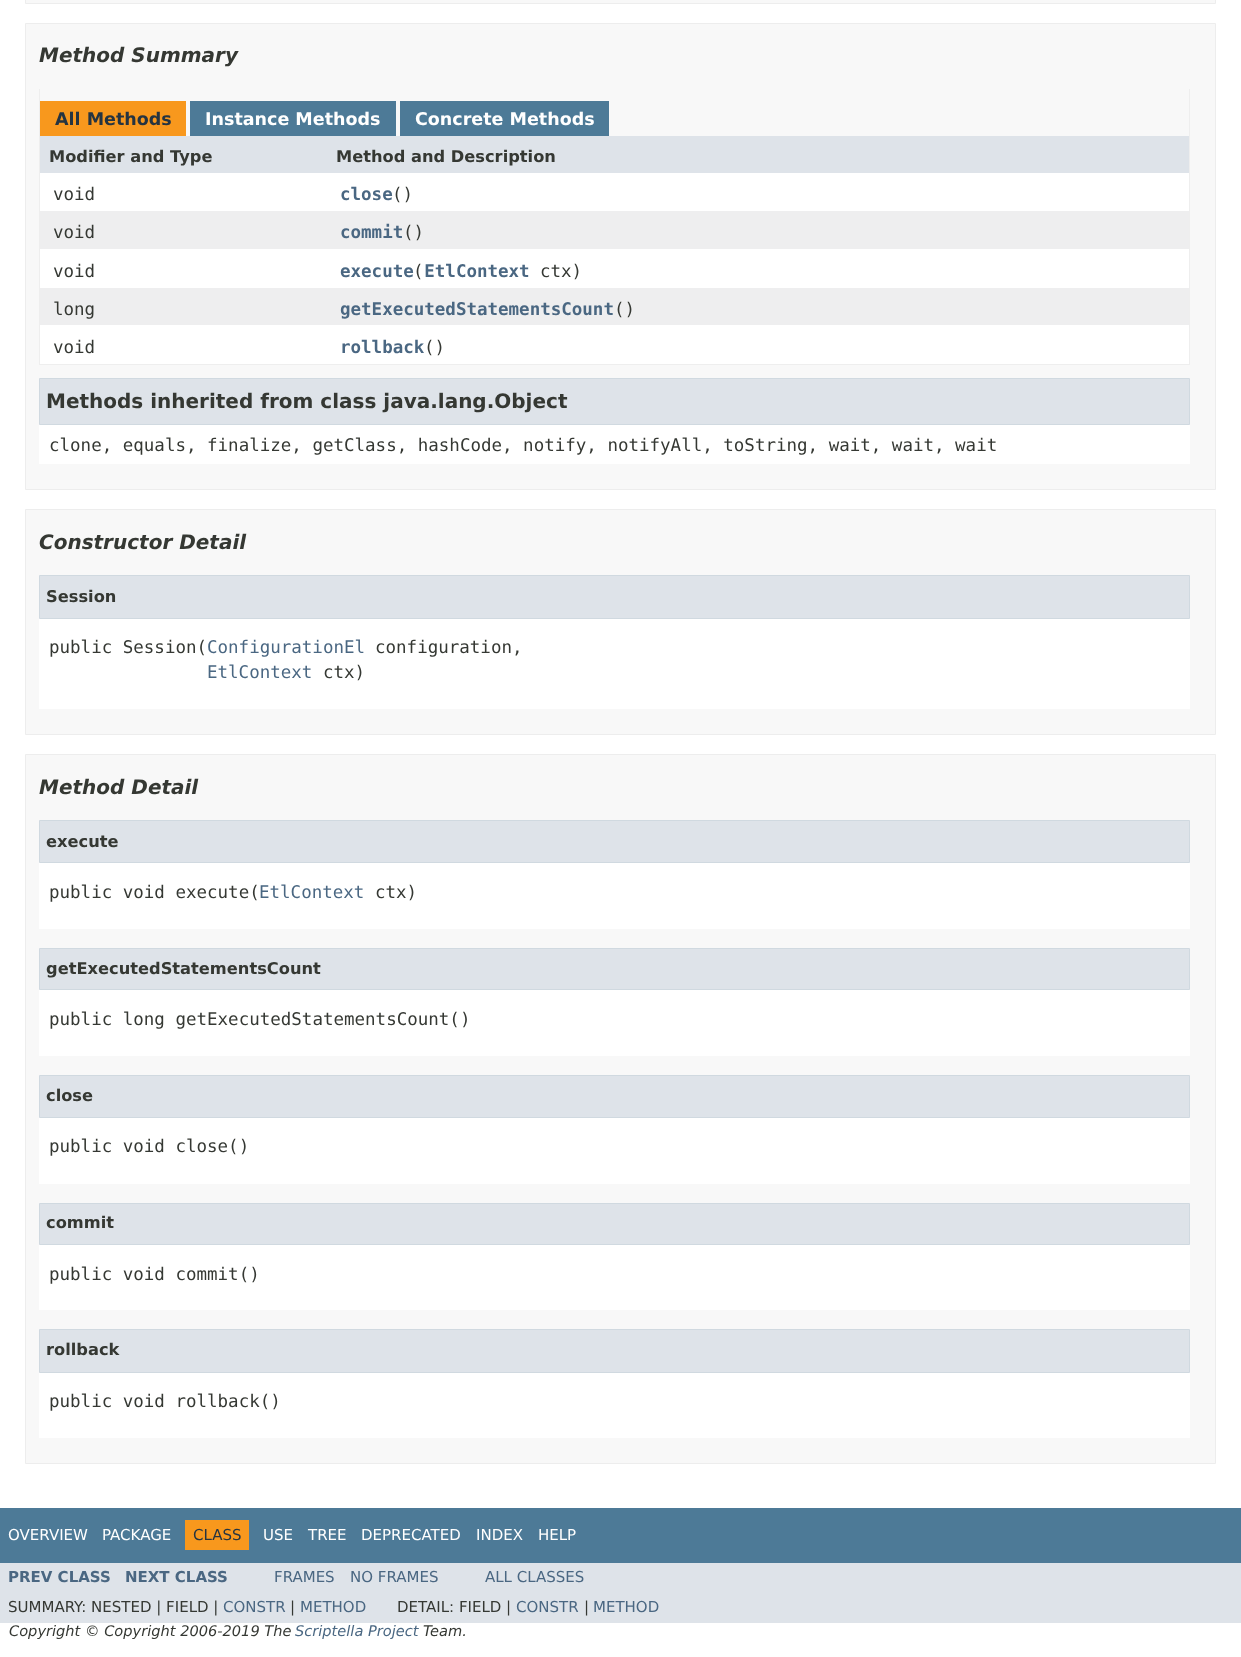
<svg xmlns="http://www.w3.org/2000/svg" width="1241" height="1657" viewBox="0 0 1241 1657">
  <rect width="100%" height="100%" fill="#fff"/>
  <path d="M25.5 -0.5h1190v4H25.5z" fill="#f8f8f8" stroke="#ededed"/>
  <path d="M25.5 23.5h1190v466H25.5z" fill="#f8f8f8" stroke="#ededed"/>
  <path d="M1189 89h1v276H1189z" fill="#eee"/>
  <path d="M39 364h1151v1H39z" fill="#eee"/>
  <path d="M39 89h1v276H39z" fill="#eee"/>
  <path d="M40 101h146v35H40z" fill="#f8981d"/>
  <path d="M190 101h206v35H190z" fill="#4d7a97"/>
  <path d="M400 101h209v35H400z" fill="#4d7a97"/>
  <path d="M40 136h1149v37H40z" fill="#dee3e9"/>
  <path d="M40 173h1149v38H40z" fill="#fff"/>
  <path d="M40 211h1149v38H40z" fill="#eeeeef"/>
  <path d="M40 249h1149v39H40z" fill="#fff"/>
  <path d="M40 288h1149v37H40z" fill="#eeeeef"/>
  <path d="M40 325h1149v39H40z" fill="#fff"/>
  <path d="M39 425h1151v39H39z" fill="#fff"/>
  <path d="M39.5 378.5h1150v46H39.5z" fill="#dee3e9" stroke="#d0d9e0"/>
  <path d="M25.5 509.5h1190v225H25.5z" fill="#f8f8f8" stroke="#ededed"/>
  <path d="M39 619h1151v90H39z" fill="#fff"/>
  <path d="M39.5 575.5h1150v43H39.5z" fill="#dee3e9" stroke="#d0d9e0"/>
  <path d="M25.5 754.5h1190v709H25.5z" fill="#f8f8f8" stroke="#ededed"/>
  <path d="M39 863h1151v66H39z" fill="#fff"/>
  <path d="M39.5 820.5h1150v42H39.5z" fill="#dee3e9" stroke="#d0d9e0"/>
  <path d="M39 990h1151v66H39z" fill="#fff"/>
  <path d="M39.5 948.5h1150v41H39.5z" fill="#dee3e9" stroke="#d0d9e0"/>
  <path d="M39 1118h1151v66H39z" fill="#fff"/>
  <path d="M39.5 1075.5h1150v42H39.5z" fill="#dee3e9" stroke="#d0d9e0"/>
  <path d="M39 1245h1151v65H39z" fill="#fff"/>
  <path d="M39.5 1203.5h1150v41H39.5z" fill="#dee3e9" stroke="#d0d9e0"/>
  <path d="M39 1373h1151v65H39z" fill="#fff"/>
  <path d="M39.5 1329.5h1150v43H39.5z" fill="#dee3e9" stroke="#d0d9e0"/>
  <path d="M0 1508h1241v55H0z" fill="#4d7a97"/>
  <path d="M185 1520h64v30H185z" fill="#f8981d"/>
  <path d="M0 1563h1241v60H0z" fill="#dee3e9"/>
  <text x="39" y="62" font-family="DejaVu Sans" font-size="20" font-weight="bold" font-style="italic" fill="#353833">Method Summary</text>
  <text x="55" y="125" font-family="DejaVu Sans" font-size="17.5" font-weight="bold" fill="#253441">All Methods</text>
  <g font-family="DejaVu Sans" font-size="17.5" font-weight="bold" fill="#fff">
    <text x="205" y="125">Instance Methods</text>
    <text x="415" y="125">Concrete Methods</text>
  </g>
  <g font-family="DejaVu Sans" font-size="16.25" font-weight="bold" fill="#353833">
    <text x="49" y="162">Modifier and Type</text>
    <text x="336" y="162">Method and Description</text>
  </g>
  <text x="53" y="200" font-family="DejaVu Sans Mono" font-size="17.5" fill="#353833">void</text>
  <text x="340" y="200" font-family="DejaVu Sans Mono" font-size="17.5" font-weight="bold" fill="#4a6782">close</text>
  <g font-family="DejaVu Sans Mono" font-size="17.5" fill="#353833">
    <text x="392" y="200">()</text>
    <text x="53" y="238">void</text>
  </g>
  <text x="340" y="238" font-family="DejaVu Sans Mono" font-size="17.5" font-weight="bold" fill="#4a6782">commit</text>
  <g font-family="DejaVu Sans Mono" font-size="17.5" fill="#353833">
    <text x="403" y="238">()</text>
    <text x="53" y="277">void</text>
  </g>
  <text x="340" y="277" font-family="DejaVu Sans Mono" font-size="17.5" font-weight="bold" fill="#4a6782">execute EtlContext</text>
  <g font-family="DejaVu Sans Mono" font-size="17.5" fill="#353833">
    <text x="413" y="277">(</text>
    <text x="540" y="277">ctx)</text>
    <text x="53" y="315">long</text>
  </g>
  <text x="340" y="315" font-family="DejaVu Sans Mono" font-size="17.5" font-weight="bold" fill="#4a6782">getExecutedStatementsCount</text>
  <g font-family="DejaVu Sans Mono" font-size="17.5" fill="#353833">
    <text x="614" y="315">()</text>
    <text x="53" y="353">void</text>
  </g>
  <text x="340" y="353" font-family="DejaVu Sans Mono" font-size="17.5" font-weight="bold" fill="#4a6782">rollback</text>
  <text x="424" y="353" font-family="DejaVu Sans Mono" font-size="17.5" fill="#353833">()</text>
  <text x="46" y="408" font-family="DejaVu Sans" font-size="20" font-weight="bold" fill="#353833">Methods inherited from class java.lang.Object</text>
  <text x="49" y="451" font-family="DejaVu Sans Mono" font-size="17.5" fill="#353833">clone, equals, finalize, getClass, hashCode, notify, notifyAll, toString, wait, wait, wait</text>
  <text x="39" y="549" font-family="DejaVu Sans" font-size="20" font-weight="bold" font-style="italic" fill="#353833">Constructor Detail</text>
  <text x="46" y="602" font-family="DejaVu Sans" font-size="16.25" font-weight="bold" fill="#353833">Session</text>
  <text x="49" y="653" font-family="DejaVu Sans Mono" font-size="17.5" fill="#353833">public Session(</text>
  <text x="207" y="653" font-family="DejaVu Sans Mono" font-size="17.5" fill="#4a6782">ConfigurationEl</text>
  <text x="375" y="653" font-family="DejaVu Sans Mono" font-size="17.5" fill="#353833">configuration,</text>
  <text x="207" y="678" font-family="DejaVu Sans Mono" font-size="17.5" fill="#4a6782">EtlContext</text>
  <text x="323" y="678" font-family="DejaVu Sans Mono" font-size="17.5" fill="#353833">ctx)</text>
  <text x="39" y="794" font-family="DejaVu Sans" font-size="20" font-weight="bold" font-style="italic" fill="#353833">Method Detail</text>
  <text x="46" y="847" font-family="DejaVu Sans" font-size="16.25" font-weight="bold" fill="#353833">execute</text>
  <text x="49" y="898" font-family="DejaVu Sans Mono" font-size="17.5" fill="#353833">public void execute(</text>
  <text x="259" y="898" font-family="DejaVu Sans Mono" font-size="17.5" fill="#4a6782">EtlContext</text>
  <text x="375" y="898" font-family="DejaVu Sans Mono" font-size="17.5" fill="#353833">ctx)</text>
  <text x="46" y="974" font-family="DejaVu Sans" font-size="16.25" font-weight="bold" fill="#353833">getExecutedStatementsCount</text>
  <text x="49" y="1025" font-family="DejaVu Sans Mono" font-size="17.5" fill="#353833">public long getExecutedStatementsCount()</text>
  <text x="46" y="1101" font-family="DejaVu Sans" font-size="16.25" font-weight="bold" fill="#353833">close</text>
  <text x="49" y="1152" font-family="DejaVu Sans Mono" font-size="17.5" fill="#353833">public void close()</text>
  <text x="46" y="1228" font-family="DejaVu Sans" font-size="16.25" font-weight="bold" fill="#353833">commit</text>
  <text x="49" y="1280" font-family="DejaVu Sans Mono" font-size="17.5" fill="#353833">public void commit()</text>
  <text x="46" y="1355" font-family="DejaVu Sans" font-size="16.25" font-weight="bold" fill="#353833">rollback</text>
  <text x="49" y="1407" font-family="DejaVu Sans Mono" font-size="17.5" fill="#353833">public void rollback()</text>
  <g font-family="DejaVu Sans" font-size="15" fill="#fff">
    <text x="8" y="1540">OVERVIEW</text>
    <text x="102" y="1540">PACKAGE</text>
  </g>
  <text x="193" y="1540" font-family="DejaVu Sans" font-size="15" fill="#253441">CLASS</text>
  <g font-family="DejaVu Sans" font-size="15" fill="#fff">
    <text x="263" y="1540">USE</text>
    <text x="308" y="1540">TREE</text>
    <text x="361" y="1540">DEPRECATED</text>
    <text x="476" y="1540">INDEX</text>
    <text x="538" y="1540">HELP</text>
  </g>
  <g font-family="DejaVu Sans" font-size="15" font-weight="bold" fill="#4a6782">
    <text x="8" y="1582">PREV CLASS</text>
    <text x="125" y="1582">NEXT CLASS</text>
  </g>
  <g font-family="DejaVu Sans" font-size="15" fill="#4a6782">
    <text x="274" y="1582">FRAMES</text>
    <text x="350" y="1582">NO FRAMES</text>
    <text x="485" y="1582">ALL CLASSES</text>
  </g>
  <text x="8" y="1612" font-family="DejaVu Sans" font-size="15" fill="#353833">SUMMARY: NESTED | FIELD |</text>
  <text x="223" y="1612" font-family="DejaVu Sans" font-size="15" fill="#4a6782">CONSTR</text>
  <text x="290" y="1612" font-family="DejaVu Sans" font-size="15" fill="#353833">|</text>
  <text x="300" y="1612" font-family="DejaVu Sans" font-size="15" fill="#4a6782">METHOD</text>
  <text x="397" y="1612" font-family="DejaVu Sans" font-size="15" fill="#353833">DETAIL: FIELD |</text>
  <text x="516" y="1612" font-family="DejaVu Sans" font-size="15" fill="#4a6782">CONSTR</text>
  <text x="584" y="1612" font-family="DejaVu Sans" font-size="15" fill="#353833">|</text>
  <text x="593" y="1612" font-family="DejaVu Sans" font-size="15" fill="#4a6782">METHOD</text>
  <text x="9" y="1636" font-family="DejaVu Sans" font-size="14.6" font-style="italic" fill="#353833">Copyright © Copyright 2006-2019 The</text>
  <text x="295" y="1636" font-family="DejaVu Sans" font-size="14.6" font-style="italic" fill="#4a6782">Scriptella Project</text>
  <text x="423" y="1636" font-family="DejaVu Sans" font-size="14.6" font-style="italic" fill="#353833">Team.</text>
</svg>
